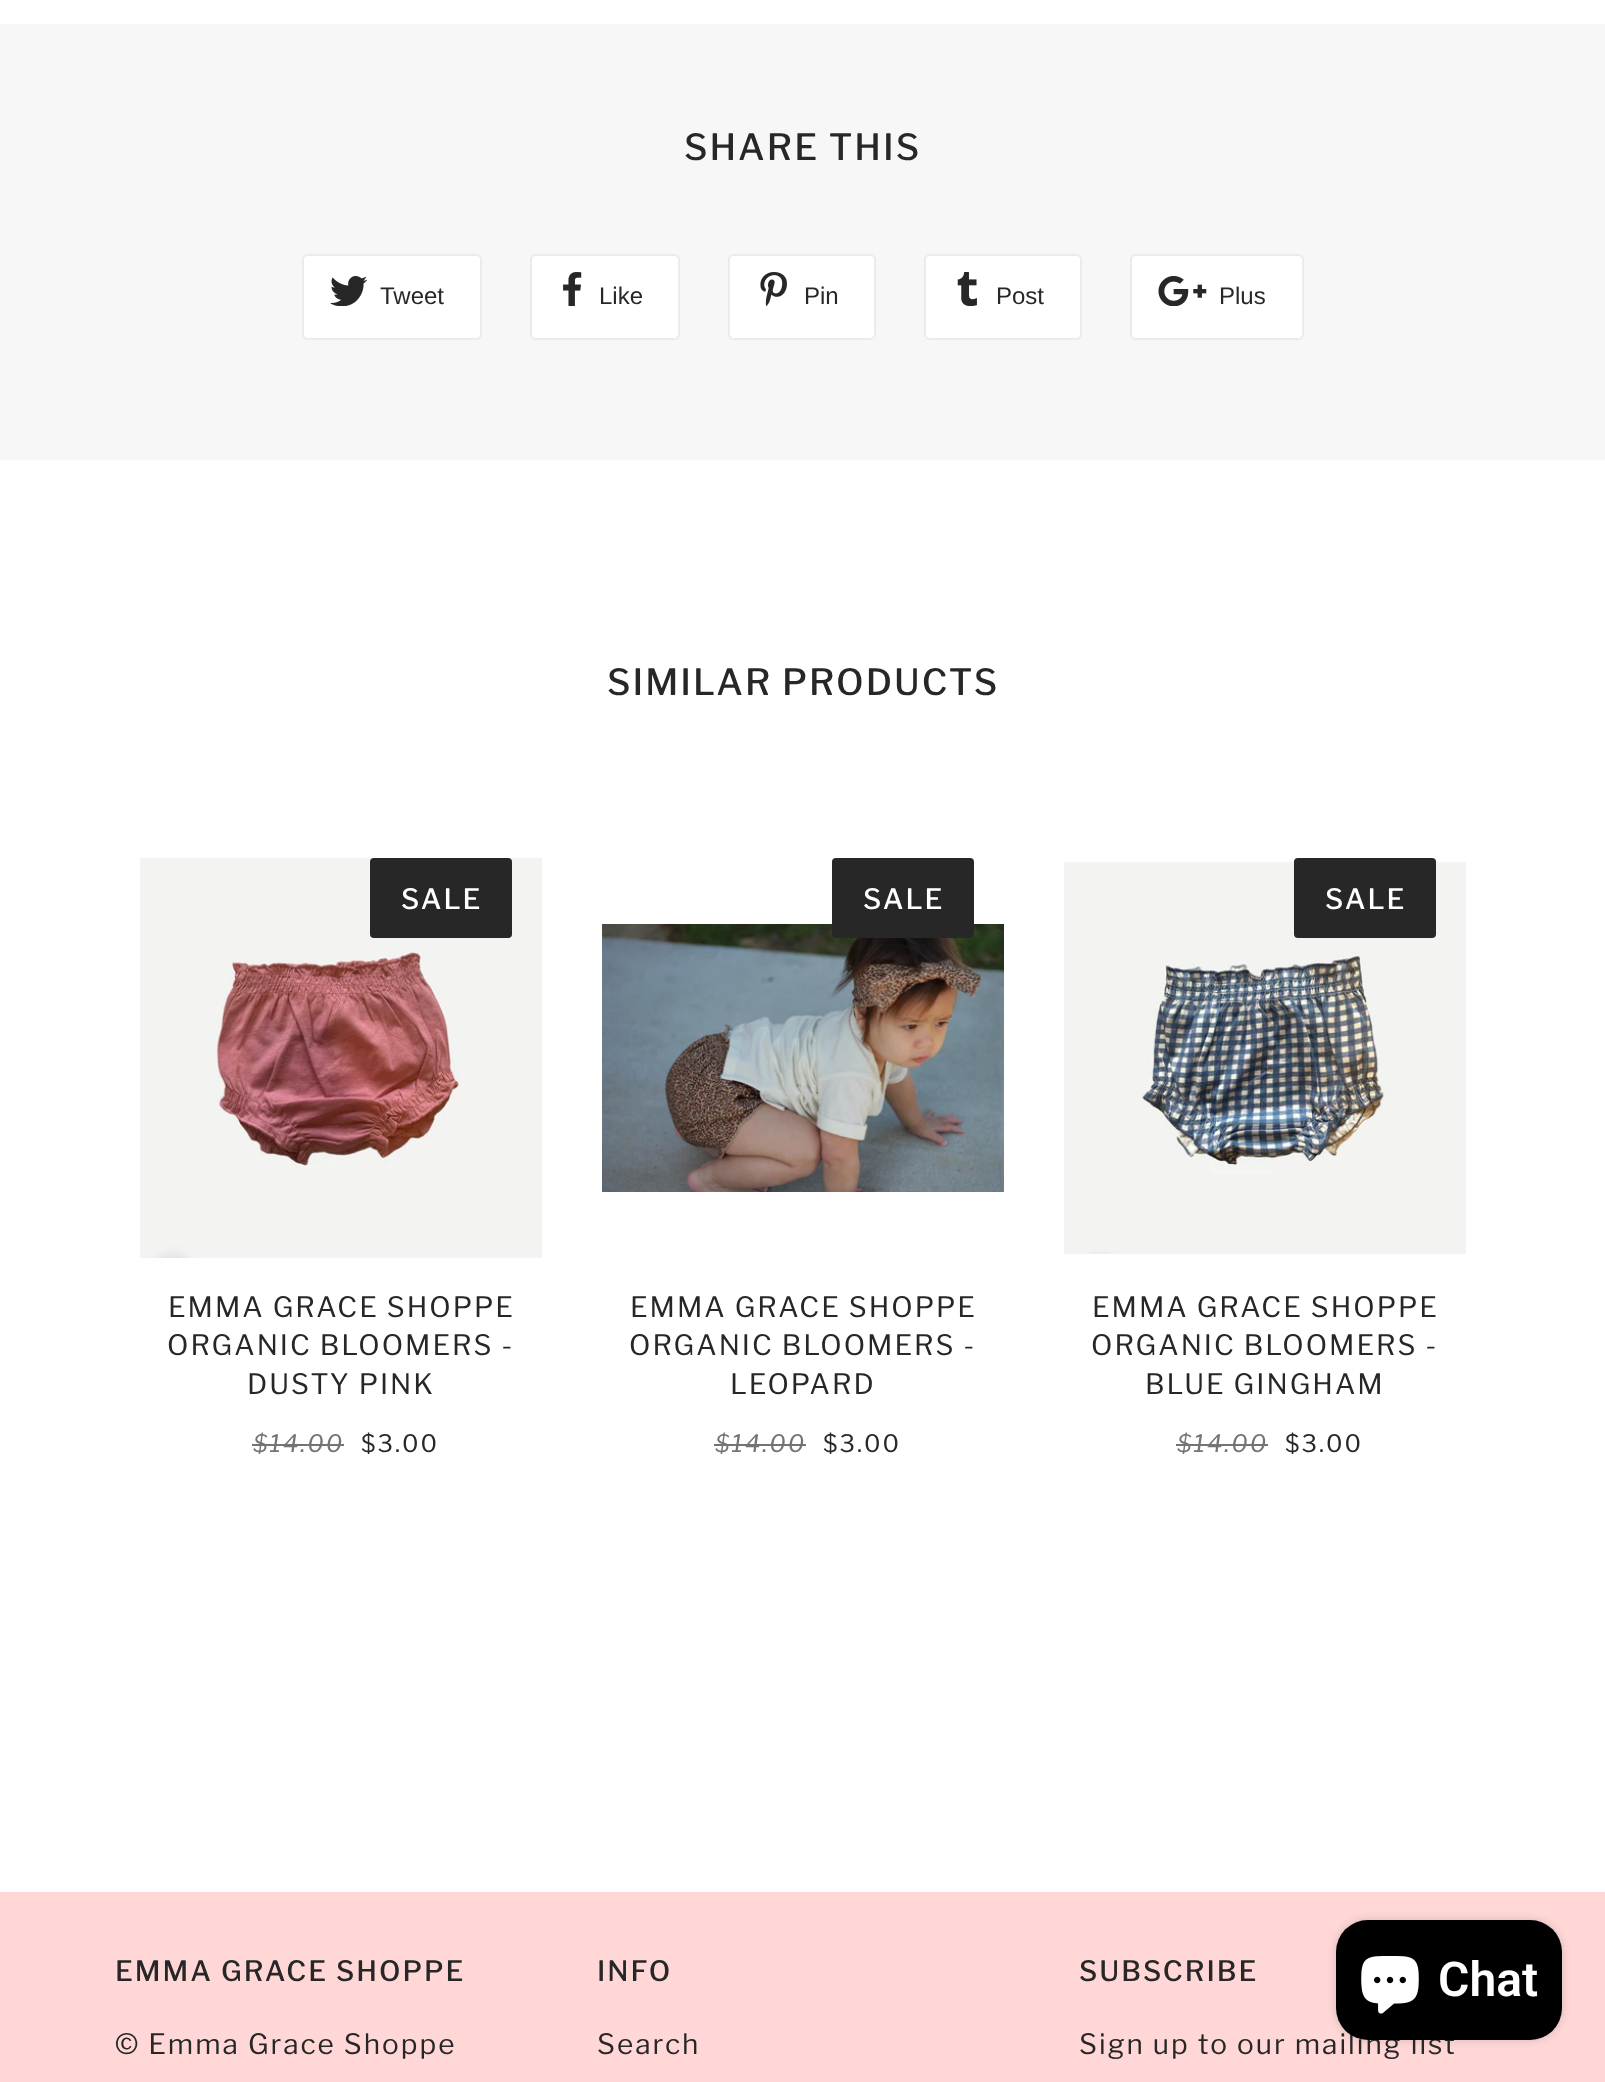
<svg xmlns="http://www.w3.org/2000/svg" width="1605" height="2082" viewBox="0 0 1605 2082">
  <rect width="100%" height="100%" fill="#fff"/>
  <path d="M0 24h1605v436H0z" fill="#f7f7f7"/>
  <rect x="303" y="255" width="178" height="84" rx="5" fill="#fff" stroke="#ebebeb" stroke-width="2"/>
  <image x="330" y="276" width="38" height="30" href="img/1.png"/>
  <rect x="531" y="255" width="148" height="84" rx="5" fill="#fff" stroke="#ebebeb" stroke-width="2"/>
  <image x="563" y="272" width="19" height="34" href="img/2.png"/>
  <rect x="729" y="255" width="146" height="84" rx="5" fill="#fff" stroke="#ebebeb" stroke-width="2"/>
  <image x="760" y="272" width="27" height="34" href="img/3.png"/>
  <rect x="925" y="255" width="156" height="84" rx="5" fill="#fff" stroke="#ebebeb" stroke-width="2"/>
  <image x="957" y="272" width="20" height="34" href="img/4.png"/>
  <rect x="1131" y="255" width="172" height="84" rx="5" fill="#fff" stroke="#ebebeb" stroke-width="2"/>
  <image x="1158" y="276" width="49" height="30" href="img/5.png"/>
  <image x="140" y="858" width="402" height="400" href="img/6.png"/>
  <rect x="370" y="858" width="142" height="80" rx="4" fill="#272727"/>
  <path d="M252 1444h92v2H252z" fill="#747474"/>
  <image x="602" y="924" width="402" height="268" href="img/7.png"/>
  <rect x="832" y="858" width="142" height="80" rx="4" fill="#272727"/>
  <path d="M714 1444h92v2H714z" fill="#747474"/>
  <image x="1064" y="862" width="402" height="392" href="img/8.png"/>
  <rect x="1294" y="858" width="142" height="80" rx="4" fill="#272727"/>
  <path d="M1176 1444h92v2H1176z" fill="#747474"/>
  <path d="M0 1892h1605v190H0z" fill="#ffd7d7"/>
  <rect x="1336" y="1920" width="226" height="120" rx="32" fill="#00000026" filter="blur(5px)"/>
  <text x="684" y="160" font-family="Libre Franklin" font-size="36" font-weight="500" letter-spacing="2" fill="#272727">SHARE THIS</text>
  <g font-family="Liberation Sans" font-size="24" fill="#272727">
    <text x="380" y="304">Tweet</text>
    <text x="599" y="304">Like</text>
    <text x="804" y="304">Pin</text>
    <text x="996" y="304">Post</text>
    <text x="1219" y="304">Plus</text>
  </g>
  <text x="607" y="695" font-family="Libre Franklin" font-size="36" font-weight="500" letter-spacing="2" fill="#272727">SIMILAR PRODUCTS</text>
  <text x="401" y="909" font-family="Libre Franklin" font-size="28" font-weight="500" letter-spacing="2" fill="#fff">SALE</text>
  <g font-family="Libre Franklin" font-size="28" letter-spacing="2" fill="#272727">
    <text x="168" y="1317">EMMA GRACE SHOPPE</text>
    <text x="167" y="1355">ORGANIC BLOOMERS -</text>
    <text x="247" y="1394">DUSTY PINK</text>
  </g>
  <text x="253" y="1452" font-family="Libre Franklin" font-size="24" font-style="italic" letter-spacing="2" fill="#747474">$14.00</text>
  <text x="361" y="1452" font-family="Libre Franklin" font-size="24" letter-spacing="2" fill="#272727">$3.00</text>
  <text x="863" y="909" font-family="Libre Franklin" font-size="28" font-weight="500" letter-spacing="2" fill="#fff">SALE</text>
  <g font-family="Libre Franklin" font-size="28" letter-spacing="2" fill="#272727">
    <text x="630" y="1317">EMMA GRACE SHOPPE</text>
    <text x="629" y="1355">ORGANIC BLOOMERS -</text>
    <text x="730" y="1394">LEOPARD</text>
  </g>
  <text x="715" y="1452" font-family="Libre Franklin" font-size="24" font-style="italic" letter-spacing="2" fill="#747474">$14.00</text>
  <text x="823" y="1452" font-family="Libre Franklin" font-size="24" letter-spacing="2" fill="#272727">$3.00</text>
  <text x="1325" y="909" font-family="Libre Franklin" font-size="28" font-weight="500" letter-spacing="2" fill="#fff">SALE</text>
  <g font-family="Libre Franklin" font-size="28" letter-spacing="2" fill="#272727">
    <text x="1092" y="1317">EMMA GRACE SHOPPE</text>
    <text x="1091" y="1355">ORGANIC BLOOMERS -</text>
    <text x="1145" y="1394">BLUE GINGHAM</text>
  </g>
  <text x="1177" y="1452" font-family="Libre Franklin" font-size="24" font-style="italic" letter-spacing="2" fill="#747474">$14.00</text>
  <text x="1285" y="1452" font-family="Libre Franklin" font-size="24" letter-spacing="2" fill="#272727">$3.00</text>
  <text x="115" y="1981" font-family="Libre Franklin" font-size="28" font-weight="500" letter-spacing="2" fill="#272727">EMMA GRACE SHOPPE</text>
  <text x="115" y="2054" font-family="Libre Franklin" font-size="28" letter-spacing="2" fill="#272727">© Emma Grace Shoppe</text>
  <text x="597" y="1981" font-family="Libre Franklin" font-size="28" font-weight="500" letter-spacing="2" fill="#272727">INFO</text>
  <text x="597" y="2054" font-family="Libre Franklin" font-size="28" letter-spacing="2" fill="#272727">Search</text>
  <text x="1079" y="1981" font-family="Libre Franklin" font-size="28" font-weight="500" letter-spacing="2" fill="#272727">SUBSCRIBE</text>
  <text x="1079" y="2054" font-family="Libre Franklin" font-size="28" letter-spacing="2" fill="#272727">Sign up to our mailing list</text>
  <rect x="1336" y="1920" width="226" height="120" rx="32" fill="#000"/>
  <image x="1361" y="1956" width="58" height="58" href="img/9.png"/>
  <text x="1438" y="1996" font-family="Roboto" font-size="48" font-weight="600" fill="#fff">Chat</text>
</svg>
